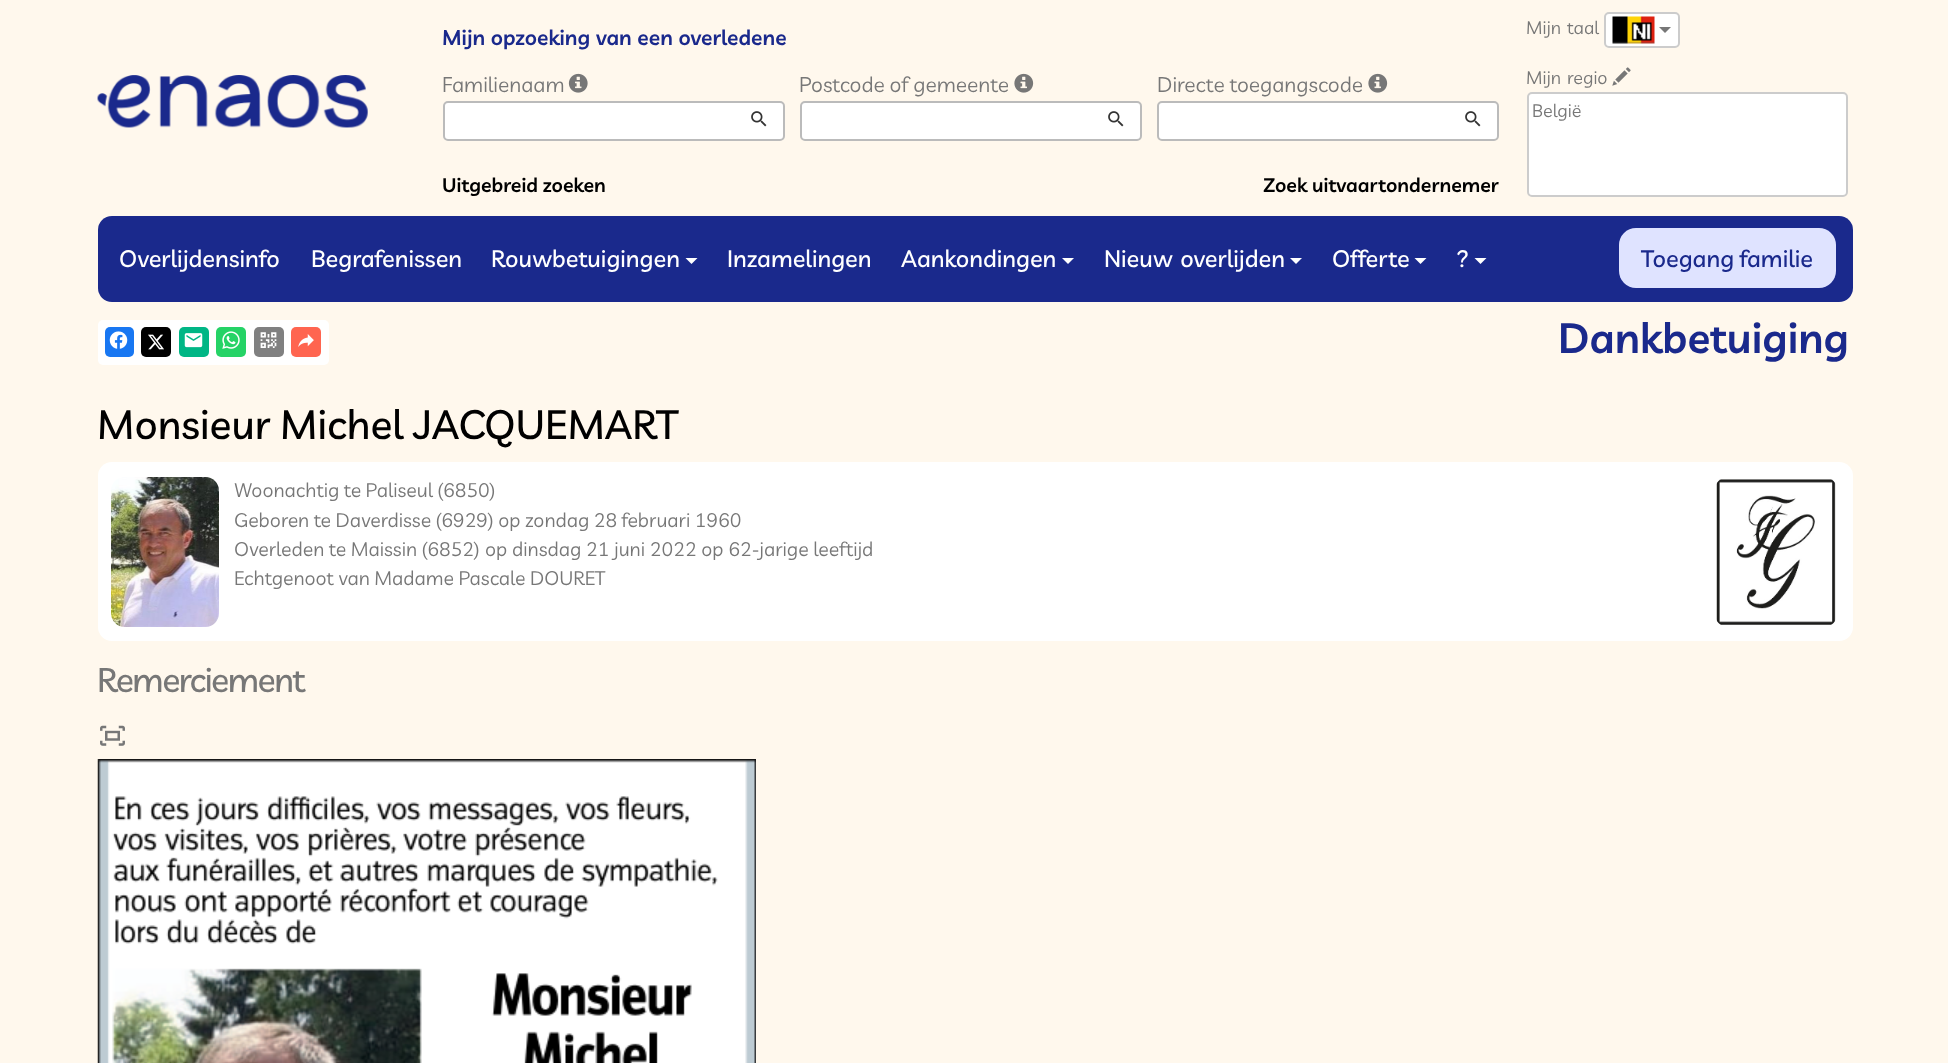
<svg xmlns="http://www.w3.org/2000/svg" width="1948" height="1063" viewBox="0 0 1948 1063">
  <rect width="100%" height="100%" fill="#fff8ed"/>
  <image x="97" y="75" width="271" height="53" href="img/1.png"/>
  <image x="568" y="73" width="20" height="20" href="img/2.png"/>
  <rect x="444" y="102" width="340" height="38" rx="4" fill="#fff" stroke="#bbb" stroke-width="2"/>
  <image x="751" y="111" width="16" height="16" href="img/3.png"/>
  <image x="1014" y="73" width="20" height="20" href="img/4.png"/>
  <rect x="801" y="102" width="340" height="38" rx="4" fill="#fff" stroke="#bbb" stroke-width="2"/>
  <image x="1108" y="111" width="16" height="16" href="img/3.png"/>
  <image x="1368" y="73" width="20" height="20" href="img/4.png"/>
  <rect x="1158" y="102" width="340" height="38" rx="4" fill="#fff" stroke="#bbb" stroke-width="2"/>
  <image x="1465" y="111" width="16" height="16" href="img/3.png"/>
  <rect x="1605" y="13" width="74" height="34" rx="4" fill="#fff" stroke="#ccc" stroke-width="2"/>
  <image x="1612" y="16" width="43" height="28" href="img/5.png"/>
  <path d="M1659 27H1671L1665 33Z" fill="#777"/>
  <image x="1612" y="67" width="19" height="19" href="img/6.png"/>
  <rect x="1528" y="93" width="319" height="103" rx="4" fill="#fff" stroke="#ccc" stroke-width="2"/>
  <rect x="98" y="216" width="1755" height="86" rx="14" fill="#1a298c"/>
  <path d="M685.5 258H697.5L691.5 264Z" fill="#fff"/>
  <path d="M1062 258H1074L1068 264Z" fill="#fff"/>
  <path d="M1290 258H1302L1296 264Z" fill="#fff"/>
  <path d="M1414.5 258H1426.5L1420.5 264Z" fill="#fff"/>
  <path d="M1474.5 258H1486.5L1480.5 264Z" fill="#fff"/>
  <rect x="1619" y="228" width="217" height="60" rx="17" fill="#dfe3ff"/>
  <rect x="98" y="320" width="231" height="45" rx="5" fill="#fff"/>
  <rect x="105" y="327" width="29" height="30" rx="5" fill="#1877f2"/>
  <image x="109" y="331" width="19" height="18" href="img/7.png"/>
  <rect x="141" y="327" width="30" height="30" rx="5" fill="#000"/>
  <image x="148" y="334" width="16" height="16" href="img/8.png"/>
  <rect x="179" y="327" width="30" height="30" rx="5" fill="#00b685"/>
  <image x="184" y="333" width="19" height="15" href="img/9.png"/>
  <rect x="216" y="327" width="30" height="30" rx="5" fill="#25d366"/>
  <image x="222" y="331" width="18" height="18" href="img/10.png"/>
  <rect x="254" y="327" width="30" height="30" rx="5" fill="#808080"/>
  <image x="260" y="332" width="17" height="16" href="img/11.png"/>
  <rect x="291" y="327" width="30" height="30" rx="5" fill="#ff6550"/>
  <image x="298" y="334" width="16" height="13" href="img/12.png"/>
  <rect x="98" y="462" width="1755" height="179" rx="14" fill="#fff"/>
  <image x="111" y="477" width="108" height="150" href="img/13.png"/>
  <image x="1716" y="479" width="120" height="146" href="img/14.png"/>
  <image x="100" y="725" width="25" height="21" href="img/15.png"/>
  <image x="97" y="759" width="659" height="304" href="img/16.png"/>
  <text x="442" y="45" word-spacing="0.5" font-family="Livvic" font-size="21" font-weight="600" fill="#1a298c">Mijn opzoeking van een overledene</text>
  <g font-family="Livvic" font-size="21" fill="#777">
    <text x="442" y="92">Familienaam</text>
    <text x="799" y="92">Postcode of gemeente</text>
    <text x="1157" y="92">Directe toegangscode</text>
  </g>
  <g font-family="Livvic" font-size="19.5" font-weight="600" fill="#000">
    <text x="442" y="192">Uitgebreid zoeken</text>
    <text x="1263" y="192">Zoek uitvaartondernemer</text>
  </g>
  <g font-family="Livvic" font-size="18" fill="#777">
    <text x="1526" y="34" word-spacing="2">Mijn taal</text>
    <text x="1526" y="84" word-spacing="2">Mijn regio</text>
    <text x="1532" y="117">België</text>
  </g>
  <g font-family="Livvic" font-size="23.5" font-weight="500" fill="#fff">
    <text x="119" y="267">Overlijdensinfo</text>
    <text x="311" y="267">Begrafenissen</text>
    <text x="491" y="267">Rouwbetuigingen</text>
    <text x="727" y="267">Inzamelingen</text>
    <text x="901" y="267">Aankondingen</text>
    <text x="1104" y="267" word-spacing="2">Nieuw overlijden</text>
    <text x="1332" y="267">Offerte</text>
    <text x="1457" y="267">?</text>
  </g>
  <text x="1641" y="267" font-family="Livvic" font-size="23.5" font-weight="500" fill="#1a298c">Toegang familie</text>
  <text x="1558" y="353" font-family="Livvic" font-size="42" font-weight="600" fill="#1a298c">Dankbetuiging</text>
  <text x="97" y="439" font-family="Livvic" font-size="40.5" font-weight="500" fill="#000">Monsieur Michel JACQUEMART</text>
  <g font-family="Livvic" font-size="19.5" fill="#777">
    <text x="234" y="497">Woonachtig te Paliseul (6850)</text>
    <text x="234" y="527">Geboren te Daverdisse (6929) op zondag 28 februari 1960</text>
    <text x="234" y="556">Overleden te Maissin (6852)</text>
    <text x="485" y="556" word-spacing="0.25">op dinsdag 21 juni 2022 op 62-jarige leeftijd</text>
    <text x="234" y="585">Echtgenoot van Madame Pascale DOURET</text>
  </g>
  <text x="97" y="692" font-family="Livvic" font-size="33.75" font-weight="500" letter-spacing="-1.5" fill="#777">Remerciement</text>
</svg>
